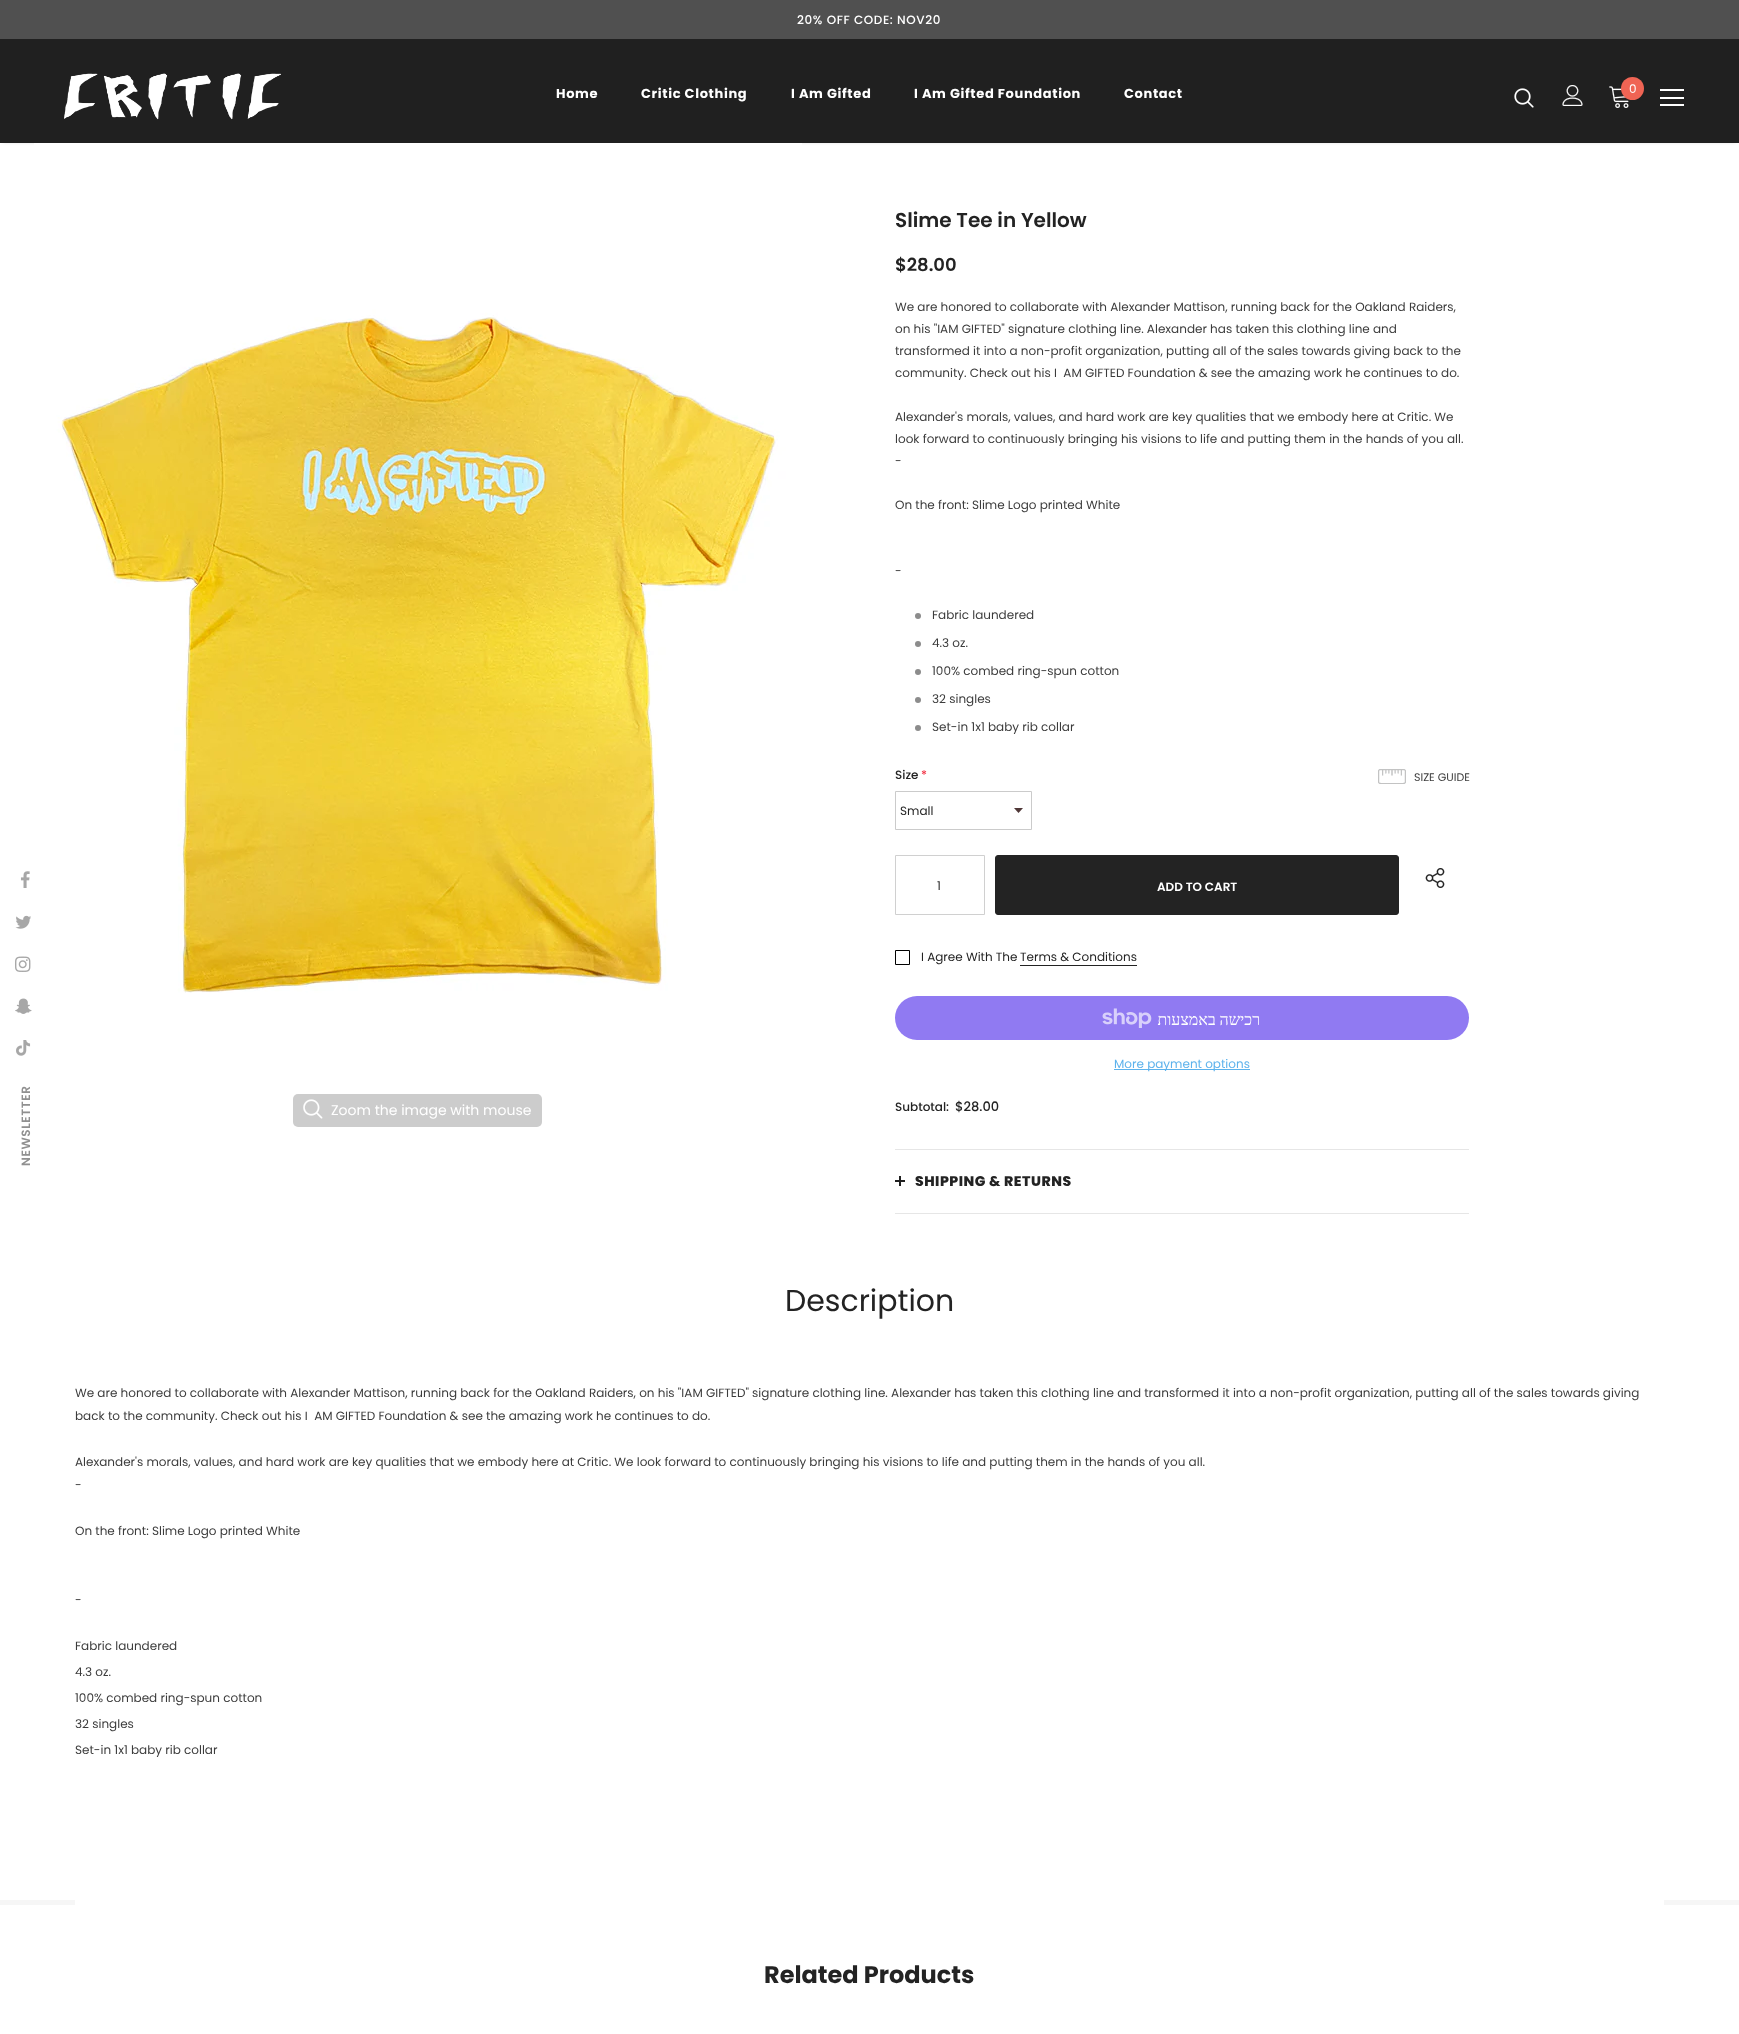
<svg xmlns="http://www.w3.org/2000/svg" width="1739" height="2034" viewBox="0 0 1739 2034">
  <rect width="100%" height="100%" fill="#fff"/>
  <path d="M0 0h1739v39H0z" fill="#505050"/>
  <path d="M3 45h1733v98H3z" fill="#0000001a" filter="blur(1.5px)"/>
  <path d="M0 39h1739v104H0z" fill="#202020"/>
  <image x="64" y="73" width="217" height="47" href="img/1.png"/>
  <image x="1514" y="88" width="20" height="20" href="img/2.png"/>
  <image x="1562" y="85" width="21" height="21" href="img/3.png"/>
  <image x="1609" y="86" width="20" height="22" href="img/4.png"/>
  <circle cx="1632.5" cy="88.5" r="11.5" fill="#ef6454"/>
  <path d="M1660 89h24v2H1660z" fill="#fff"/>
  <path d="M1660 97h24v2H1660z" fill="#fff"/>
  <path d="M1660 104h24v2H1660z" fill="#fff"/>
  <image x="20" y="871" width="10" height="17" href="img/5.png"/>
  <image x="15" y="915" width="16" height="14" href="img/6.png"/>
  <image x="15" y="956" width="16" height="16" href="img/7.png"/>
  <image x="15" y="998" width="17" height="16" href="img/8.png"/>
  <image x="16" y="1040" width="15" height="16" href="img/9.png"/>
  <image x="34" y="143" width="768" height="850" href="img/10.png"/>
  <rect x="293" y="1094" width="249" height="33" rx="5" fill="#ccc"/>
  <image x="303" y="1099" width="20" height="20" href="img/11.png"/>
  <circle cx="918" cy="616" r="3" fill="#8c8c8c"/>
  <circle cx="918" cy="644" r="3" fill="#8c8c8c"/>
  <circle cx="918" cy="672" r="3" fill="#8c8c8c"/>
  <circle cx="918" cy="700" r="3" fill="#8c8c8c"/>
  <circle cx="918" cy="728" r="3" fill="#8c8c8c"/>
  <image x="1014" y="808" width="9" height="5" href="img/12.png"/>
  <path d="M895.5 791.5h136v38H895.5z" fill="none" stroke="#cbcbcb"/>
  <image x="1378" y="769" width="28" height="15" href="img/13.png"/>
  <path d="M895.5 855.5h89v59H895.5z" fill="none" stroke="#d0d0d0"/>
  <rect x="995.5" y="855.5" width="403" height="59" rx="2.5" fill="#232323" stroke="#232323"/>
  <image x="1425" y="868" width="20" height="20" href="img/14.png"/>
  <path d="M895.5 950.5h14v14H895.5z" fill="none" stroke="#000"/>
  <path d="M1020 965h117v1H1020z" fill="#232323"/>
  <rect x="895" y="996" width="574" height="44" rx="22" fill="#907af2"/>
  <image x="1102" y="1008" width="50" height="20" href="img/15.png"/>
  <path d="M1114 1069h136v1H1114z" fill="#5db2ec"/>
  <path d="M895 1149h574v1H895z" fill="#e6e6e6"/>
  <path d="M895 1213h574v1H895z" fill="#e6e6e6"/>
  <path d="M895 1180h10v2H895z" fill="#202020"/>
  <path d="M899 1176h2v10H899z" fill="#202020"/>
  <path d="M0 1900h75v5H0z" fill="#f6f6f6"/>
  <path d="M1664 1900h75v5H1664z" fill="#f6f6f6"/>
  <text x="797" y="24" font-family="Poppins" font-size="12" font-weight="500" letter-spacing="0.6" fill="#fff">20% OFF CODE: NOV20</text>
  <g font-family="Poppins" font-size="13" font-weight="bold" letter-spacing="0.65" fill="#fff">
    <text x="556" y="98">Home</text>
    <text x="641" y="98">Critic Clothing</text>
    <text x="791" y="98">I Am Gifted</text>
    <text x="914" y="98">I Am Gifted Foundation</text>
    <text x="1124" y="98">Contact</text>
  </g>
  <text x="1629" y="93" font-family="Poppins" font-size="12" fill="#fff">0</text>
  <text x="30" y="1166" transform="rotate(-90 30 1166)" font-family="Poppins" font-size="12" font-weight="600" letter-spacing="0.6" fill="#909090">NEWSLETTER</text>
  <text x="331" y="1115" font-family="Poppins" font-size="14" fill="#fff">Zoom the image with mouse</text>
  <text x="895" y="227" font-family="Poppins" font-size="20" font-weight="600" fill="#232323">Slime Tee in Yellow</text>
  <text x="895" y="271" font-family="Poppins" font-size="18" font-weight="600" fill="#232323">$28.00</text>
  <g font-family="Poppins" font-size="12" fill="#3c3c3c">
    <text x="895" y="311">We are honored to collaborate with Alexander Mattison, running back for the Oakland Raiders,</text>
    <text x="895" y="333">on his "IAM GIFTED" signature clothing line. Alexander has taken this clothing line and</text>
    <text x="895" y="355">transformed it into a non-profit organization, putting all of the sales towards giving back to the</text>
    <text x="895" y="377" xml:space="preserve">community. Check out his I  AM GIFTED Foundation &amp; see the amazing work he continues to do.</text>
    <text x="895" y="421">Alexander's morals, values, and hard work are key qualities that we embody here at Critic. We</text>
    <text x="895" y="443">look forward to continuously bringing his visions to life and putting them in the hands of you all.</text>
    <text x="895" y="465">-</text>
    <text x="895" y="509">On the front: Slime Logo printed White</text>
    <text x="895" y="575">-</text>
    <text x="932" y="619">Fabric laundered</text>
    <text x="932" y="647">4.3 oz.</text>
    <text x="932" y="675">100% combed ring-spun cotton</text>
    <text x="932" y="703">32 singles</text>
    <text x="932" y="731">Set-in 1x1 baby rib collar</text>
  </g>
  <text x="895" y="779" font-family="Poppins" font-size="12" font-weight="500" fill="#232323">Size</text>
  <text x="921" y="779" font-family="Poppins" font-size="12" font-weight="500" fill="#f23446">*</text>
  <text x="900" y="815" font-family="Poppins" font-size="12" fill="#232323">Small</text>
  <text x="1414" y="781" font-family="Poppins" font-size="11" fill="#3c3c3c">SIZE GUIDE</text>
  <text x="937" y="890" font-family="Poppins" font-size="12" fill="#2d2d2d">1</text>
  <text x="1157" y="891" font-family="Poppins" font-size="12" font-weight="600" fill="#fff">ADD TO CART</text>
  <g font-family="Poppins" font-size="12" fill="#232323">
    <text x="921" y="961">I Agree With The</text>
    <text x="1020" y="961">Terms &amp; Conditions</text>
  </g>
  <text x="1260" y="1025" font-family="Liberation Serif" font-size="16" direction="rtl" fill="#fff">רכישה באמצעות</text>
  <text x="1114" y="1068" font-family="Poppins" font-size="12" fill="#5db2ec">More payment options</text>
  <text x="895" y="1111" font-family="Poppins" font-size="12" font-weight="500" fill="#232323">Subtotal:</text>
  <text x="955" y="1111" font-family="Poppins" font-size="13" font-weight="500" fill="#232323">$28.00</text>
  <text x="915" y="1186" font-family="Poppins" font-size="14" font-weight="800" letter-spacing="0.5" fill="#232323">SHIPPING &amp; RETURNS</text>
  <text x="785" y="1311" font-family="Poppins" font-size="30" fill="#232323">Description</text>
  <g font-family="Poppins" font-size="12" fill="#3c3c3c">
    <text x="75" y="1397">We are honored to collaborate with Alexander Mattison, running back for the Oakland Raiders, on his "IAM GIFTED" signature clothing line. Alexander has taken this clothing line and transformed it into a non-profit organization, putting all of the sales towards giving</text>
    <text x="75" y="1420" xml:space="preserve">back to the community. Check out his I  AM GIFTED Foundation &amp; see the amazing work he continues to do.</text>
    <text x="75" y="1466">Alexander's morals, values, and hard work are key qualities that we embody here at Critic. We look forward to continuously bringing his visions to life and putting them in the hands of you all.</text>
    <text x="75" y="1489">-</text>
    <text x="75" y="1535">On the front: Slime Logo printed White</text>
    <text x="75" y="1604">-</text>
    <text x="75" y="1650">Fabric laundered</text>
    <text x="75" y="1676">4.3 oz.</text>
    <text x="75" y="1702">100% combed ring-spun cotton</text>
    <text x="75" y="1728">32 singles</text>
    <text x="75" y="1754">Set-in 1x1 baby rib collar</text>
  </g>
  <text x="764" y="1983" font-family="Poppins" font-size="24" font-weight="bold" fill="#232323">Related Products</text>
</svg>
